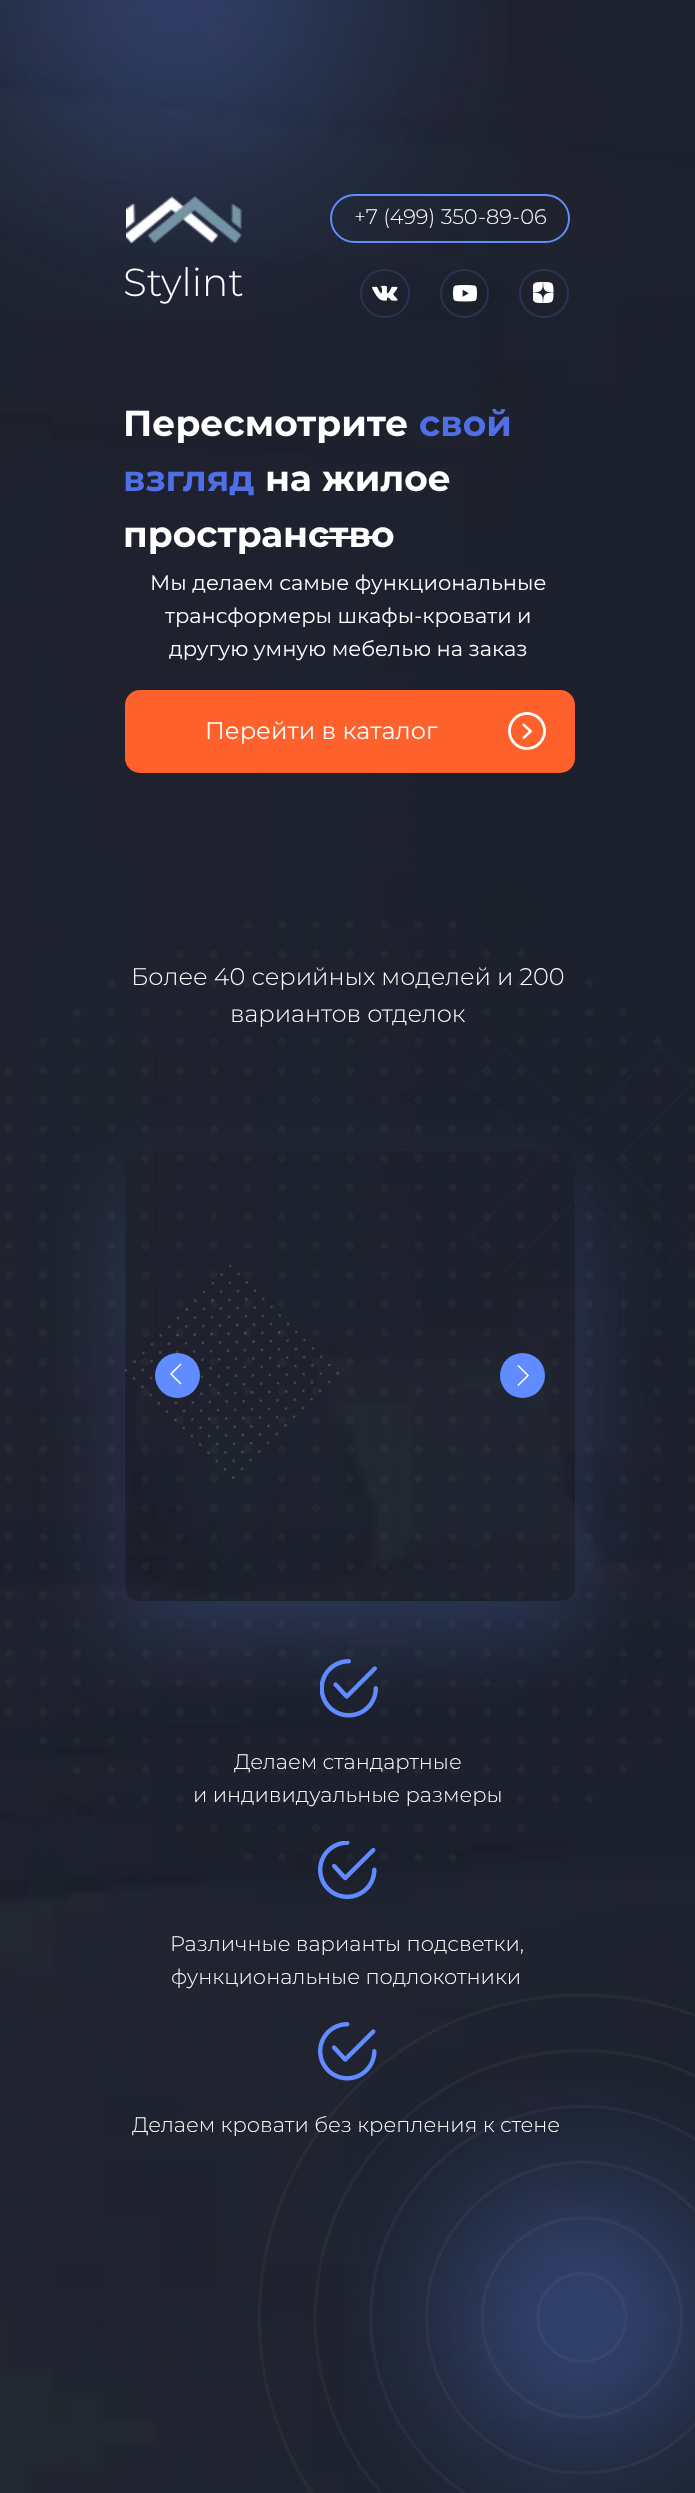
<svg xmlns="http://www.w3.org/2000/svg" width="695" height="2493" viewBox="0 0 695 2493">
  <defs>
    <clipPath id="clip1"><path d="M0 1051H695V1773H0ZM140 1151H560C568.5 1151 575 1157.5 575 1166V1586C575 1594.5 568.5 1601 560 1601H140C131.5 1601 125 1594.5 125 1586V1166C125 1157.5 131.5 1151 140 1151Z" clip-rule="evenodd"/></clipPath>
  </defs>
  <rect width="100%" height="100%" fill="#fff"/>
  <image x="0" y="0" width="695" height="2493" href="img/1.png"/>
  <image x="0" y="0" width="507" height="320" href="img/2.png"/>
  <image x="126" y="196" width="116" height="47" href="img/3.png"/>
  <rect x="331" y="195" width="238" height="47" rx="23.5" fill="none" stroke="#618cff" stroke-width="2"/>
  <rect x="361" y="270" width="48" height="47" rx="23.5" fill="none" stroke="#283452" stroke-width="2"/>
  <circle cx="464.5" cy="293.5" r="23.5" fill="none" stroke="#283452" stroke-width="2"/>
  <rect x="520" y="270" width="48" height="47" rx="23.5" fill="none" stroke="#283452" stroke-width="2"/>
  <image x="372" y="285" width="26" height="16" href="img/4.png"/>
  <image x="453" y="285" width="24" height="17" href="img/5.png"/>
  <image x="533" y="282" width="21" height="21" href="img/6.png"/>
  <path d="M320 536h57v3H320z" fill="#fff"/>
  <rect x="125" y="690" width="450" height="83" rx="15" fill="#ff612d"/>
  <image x="508" y="712" width="38" height="38" href="img/7.png"/>
  <path d="M693.5 1082.5L659 1048L582 1124.5L505 1048L470.5 1082.5L547 1159.5L470.5 1236.5L505 1271L582 1194.5L659 1271L693.5 1236.5L617 1159.5Z" fill="none" stroke="#3d435433" stroke-width="1.2"/>
  <image x="5" y="921" width="690" height="940" href="img/8.png"/>
  <image x="125" y="1265" width="214" height="214" href="img/9.png"/>
  <image x="320" y="1659" width="58" height="59" href="img/10.png"/>
  <g clip-path="url(#clip1)">
    <rect x="125" y="1187" width="450" height="450" rx="15" fill="#618cff33" filter="blur(45px)"/>
  </g>
  <circle cx="177.5" cy="1375.5" r="22.5" fill="#618cff"/>
  <path d="M181 1364L171 1374L181 1384" fill="none" stroke="#fff" stroke-width="1.5"/>
  <circle cx="522.5" cy="1375.5" r="22.5" fill="#618cff"/>
  <path d="M518 1385.5L528 1375.5L518 1365.5" fill="none" stroke="#fff" stroke-width="1.5"/>
  <image x="318" y="1841" width="59" height="58" href="img/11.png"/>
  <image x="344" y="2081" width="351" height="412" href="img/14.png"/>
  <image x="258" y="1994" width="437" height="499" href="img/12.png"/>
  <image x="318" y="2022" width="59" height="59" href="img/13.png"/>
  <text x="354" y="224" font-family="Montserrat" font-size="21" font-weight="300" fill="#fff">+7 (499) 350-89-06</text>
  <text x="123" y="296" font-family="Montserrat" font-size="39" font-weight="300" fill="#fff">Stylint</text>
  <text x="123" y="436" font-family="Montserrat" font-size="36" font-weight="bold" fill="#fff">Пересмотрите</text>
  <g font-family="Montserrat" font-size="36" font-weight="bold" fill="#506ee5">
    <text x="419" y="436">свой</text>
    <text x="123" y="491">взгляд</text>
  </g>
  <g font-family="Montserrat" font-size="36" font-weight="bold" fill="#fff">
    <text x="265" y="491">на жилое</text>
    <text x="123" y="547">пространство</text>
  </g>
  <g font-family="Montserrat" font-size="21" fill="#fff">
    <text x="150" y="590">Мы делаем самые функциональные</text>
    <text x="165" y="623">трансформеры шкафы-кровати и</text>
    <text x="169" y="656">другую умную мебелью на заказ</text>
  </g>
  <text x="205" y="739" font-family="Montserrat" font-size="24" fill="#fff">Перейти в каталог</text>
  <g font-family="Montserrat" font-size="24" font-weight="300" fill="#fff">
    <text x="131" y="985">Более 40 серийных моделей и 200</text>
    <text x="230" y="1022">вариантов отделок</text>
  </g>
  <g font-family="Montserrat" font-size="21" font-weight="300" fill="#fff">
    <text x="234" y="1769">Делаем стандартные</text>
    <text x="193" y="1802">и индивидуальные размеры</text>
    <text x="170" y="1951">Различные варианты подсветки,</text>
    <text x="171" y="1984">функциональные подлокотники</text>
    <text x="132" y="2132">Делаем кровати без крепления к стене</text>
  </g>
</svg>
